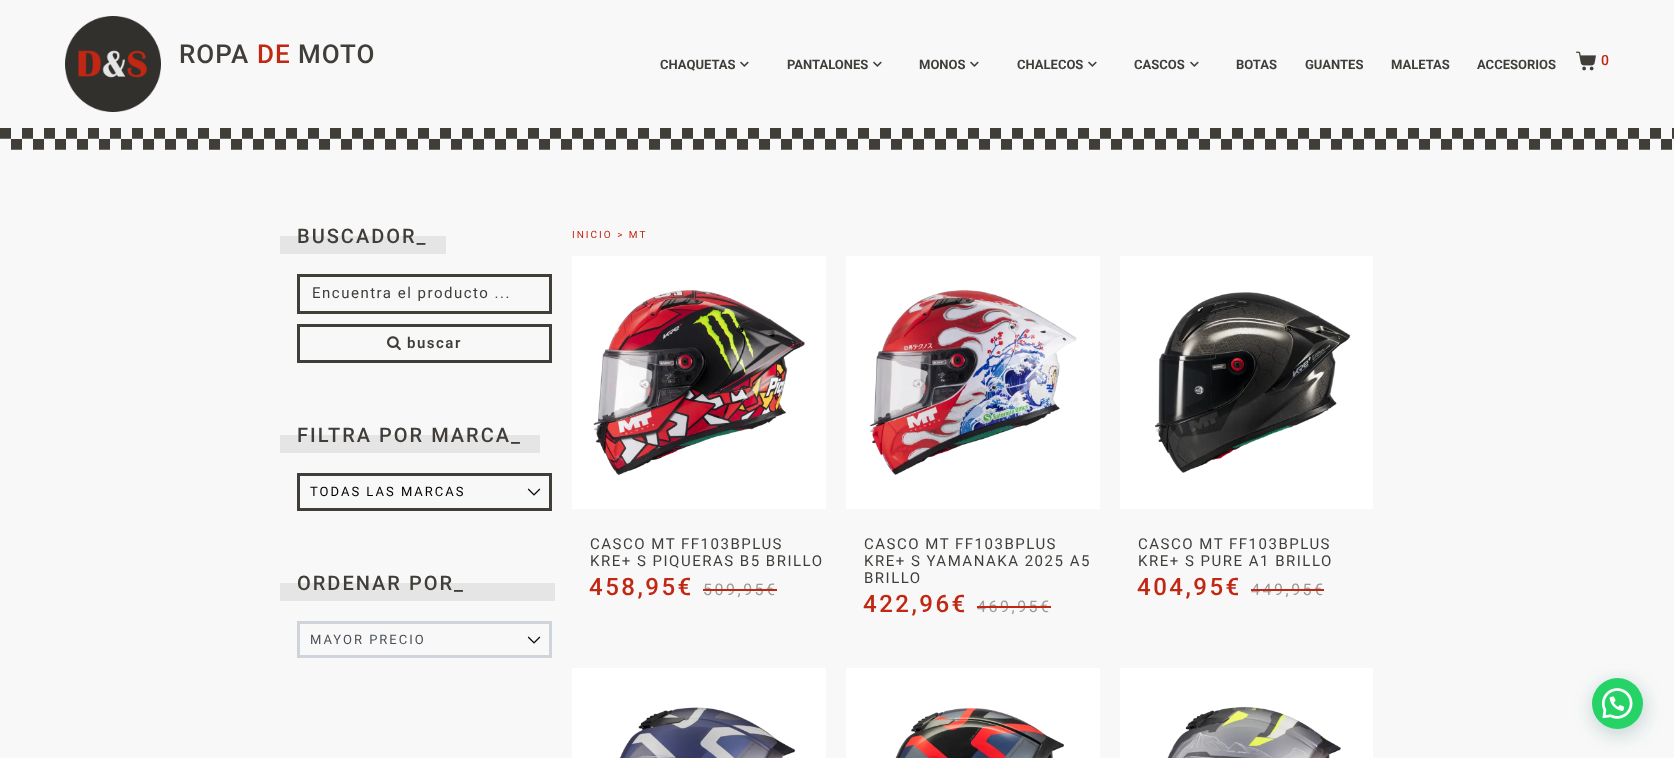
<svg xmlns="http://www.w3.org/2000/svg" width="1674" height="758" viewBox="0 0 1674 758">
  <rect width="100%" height="100%" fill="#f8f8f8"/>
  <image x="65" y="16" width="96" height="96" href="img/1.png"/>
  <image x="740" y="61" width="9" height="6" href="img/2.png"/>
  <image x="873" y="61" width="9" height="6" href="img/2.png"/>
  <image x="970" y="61" width="9" height="6" href="img/2.png"/>
  <image x="1088" y="61" width="9" height="6" href="img/2.png"/>
  <image x="1190" y="61" width="9" height="6" href="img/2.png"/>
  <image x="1576" y="51" width="20" height="20" href="img/3.png"/>
  <image x="0" y="128" width="1674" height="22" href="img/4.png"/>
  <path d="M280 236h166v18H280z" fill="#e5e5e5"/>
  <path d="M298.5 275.5h252v37H298.5z" fill="none" stroke="#413e3a" stroke-width="3"/>
  <path d="M298.5 325.5h252v36H298.5z" fill="none" stroke="#413e3a" stroke-width="3"/>
  <image x="387" y="336" width="14" height="15" href="img/5.png"/>
  <path d="M280 435h260v18H280z" fill="#e5e5e5"/>
  <image x="527" y="488" width="14" height="8" href="img/6.png"/>
  <path d="M298.5 474.5h252v35H298.5z" fill="none" stroke="#413e3a" stroke-width="3"/>
  <path d="M280 583h275v18H280z" fill="#e5e5e5"/>
  <image x="527" y="636" width="14" height="8" href="img/6.png"/>
  <path d="M298.5 622.5h252v34H298.5z" fill="none" stroke="#ced4da" stroke-width="3"/>
  <path d="M572 256h254v253H572z" fill="#fff"/>
  <image x="593" y="290" width="212" height="185" href="img/7.png"/>
  <path d="M846 256h254v253H846z" fill="#fff"/>
  <image x="869" y="290" width="208" height="185" href="img/8.png"/>
  <path d="M1120 256h253v253H1120z" fill="#fff"/>
  <image x="1155" y="292" width="196" height="181" href="img/9.png"/>
  <path d="M572 668h254v90H572z" fill="#fff"/>
  <image x="619" y="707" width="176" height="51" href="img/10.png"/>
  <path d="M846 668h254v90H846z" fill="#fff"/>
  <image x="895" y="708" width="170" height="50" href="img/11.png"/>
  <path d="M1120 668h253v90H1120z" fill="#fff"/>
  <image x="1167" y="706" width="174" height="52" href="img/12.png"/>
  <rect x="1593" y="683" width="51" height="51" rx="25.5" fill="#075e543d" filter="blur(10px)"/>
  <circle cx="1617.5" cy="703.5" r="25.5" fill="#25d366"/>
  <image x="1602" y="688" width="31" height="31" href="img/13.png"/>
  <text x="179" y="63" font-family="Roboto" font-size="26" font-weight="500" letter-spacing="1" fill="#413e3a">ROPA</text>
  <text x="257" y="63" font-family="Roboto" font-size="26" font-weight="500" letter-spacing="1" fill="#c12712">DE</text>
  <text x="298" y="63" font-family="Roboto" font-size="26" font-weight="500" letter-spacing="1" fill="#413e3a">MOTO</text>
  <g font-family="Roboto" font-size="13" font-weight="bold" fill="#413e3a">
    <text x="660" y="69">CHAQUETAS</text>
    <text x="787" y="69">PANTALONES</text>
    <text x="919" y="69">MONOS</text>
    <text x="1017" y="69">CHALECOS</text>
    <text x="1134" y="69">CASCOS</text>
    <text x="1236" y="69">BOTAS</text>
    <text x="1305" y="69">GUANTES</text>
    <text x="1391" y="69">MALETAS</text>
    <text x="1477" y="69">ACCESORIOS</text>
  </g>
  <text x="1601" y="65" font-family="Roboto" font-size="14" font-weight="500" fill="#c12712">0</text>
  <text x="297" y="243" font-family="Roboto" font-size="20" font-weight="500" letter-spacing="2" fill="#413e3a">BUSCADOR_</text>
  <text x="312" y="298" font-family="Roboto" font-size="15" letter-spacing="1.5" fill="#413e3a">Encuentra el producto ...</text>
  <text x="407" y="348" font-family="Roboto" font-size="15" font-weight="600" letter-spacing="1.5" fill="#413e3a">buscar</text>
  <text x="297" y="442" font-family="Roboto" font-size="20" font-weight="500" letter-spacing="2" fill="#413e3a">FILTRA POR MARCA_</text>
  <text x="310" y="496" font-family="Roboto" font-size="13" letter-spacing="2" fill="#000">TODAS LAS MARCAS</text>
  <text x="297" y="590" font-family="Roboto" font-size="20" font-weight="500" letter-spacing="2" fill="#413e3a">ORDENAR POR_</text>
  <text x="310" y="644" font-family="Roboto" font-size="13" letter-spacing="2" fill="#495057">MAYOR PRECIO</text>
  <text x="572" y="238" font-family="Roboto" font-size="10" letter-spacing="2" fill="#c12712">INICIO &gt; MT</text>
  <g font-family="Roboto" font-size="15" letter-spacing="1.5" fill="#413e3a">
    <text x="590" y="549">CASCO MT FF103BPLUS</text>
    <text x="590" y="566">KRE+ S PIQUERAS B5 BRILLO</text>
  </g>
  <text x="589" y="595" font-family="Roboto" font-size="24" font-weight="500" letter-spacing="2.5" fill="#c12712">458,95€</text>
  <text x="703" y="595" font-family="Roboto" font-size="16" letter-spacing="2.5" fill="#9a9a9a">509,95€</text>
  <path d="M703 589h74v2H703z" fill="#c12712"/>
  <g font-family="Roboto" font-size="15" letter-spacing="1.5" fill="#413e3a">
    <text x="864" y="549">CASCO MT FF103BPLUS</text>
    <text x="864" y="566">KRE+ S YAMANAKA 2025 A5</text>
    <text x="864" y="583">BRILLO</text>
  </g>
  <text x="863" y="612" font-family="Roboto" font-size="24" font-weight="500" letter-spacing="2.5" fill="#c12712">422,96€</text>
  <text x="977" y="612" font-family="Roboto" font-size="16" letter-spacing="2.5" fill="#9a9a9a">469,95€</text>
  <path d="M977 606h74v2H977z" fill="#c12712"/>
  <g font-family="Roboto" font-size="15" letter-spacing="1.5" fill="#413e3a">
    <text x="1138" y="549">CASCO MT FF103BPLUS</text>
    <text x="1138" y="566">KRE+ S PURE A1 BRILLO</text>
  </g>
  <text x="1137" y="595" font-family="Roboto" font-size="24" font-weight="500" letter-spacing="2.5" fill="#c12712">404,95€</text>
  <text x="1251" y="595" font-family="Roboto" font-size="16" letter-spacing="2.5" fill="#9a9a9a">449,95€</text>
  <path d="M1251 589h73v2H1251z" fill="#c12712"/>
</svg>
